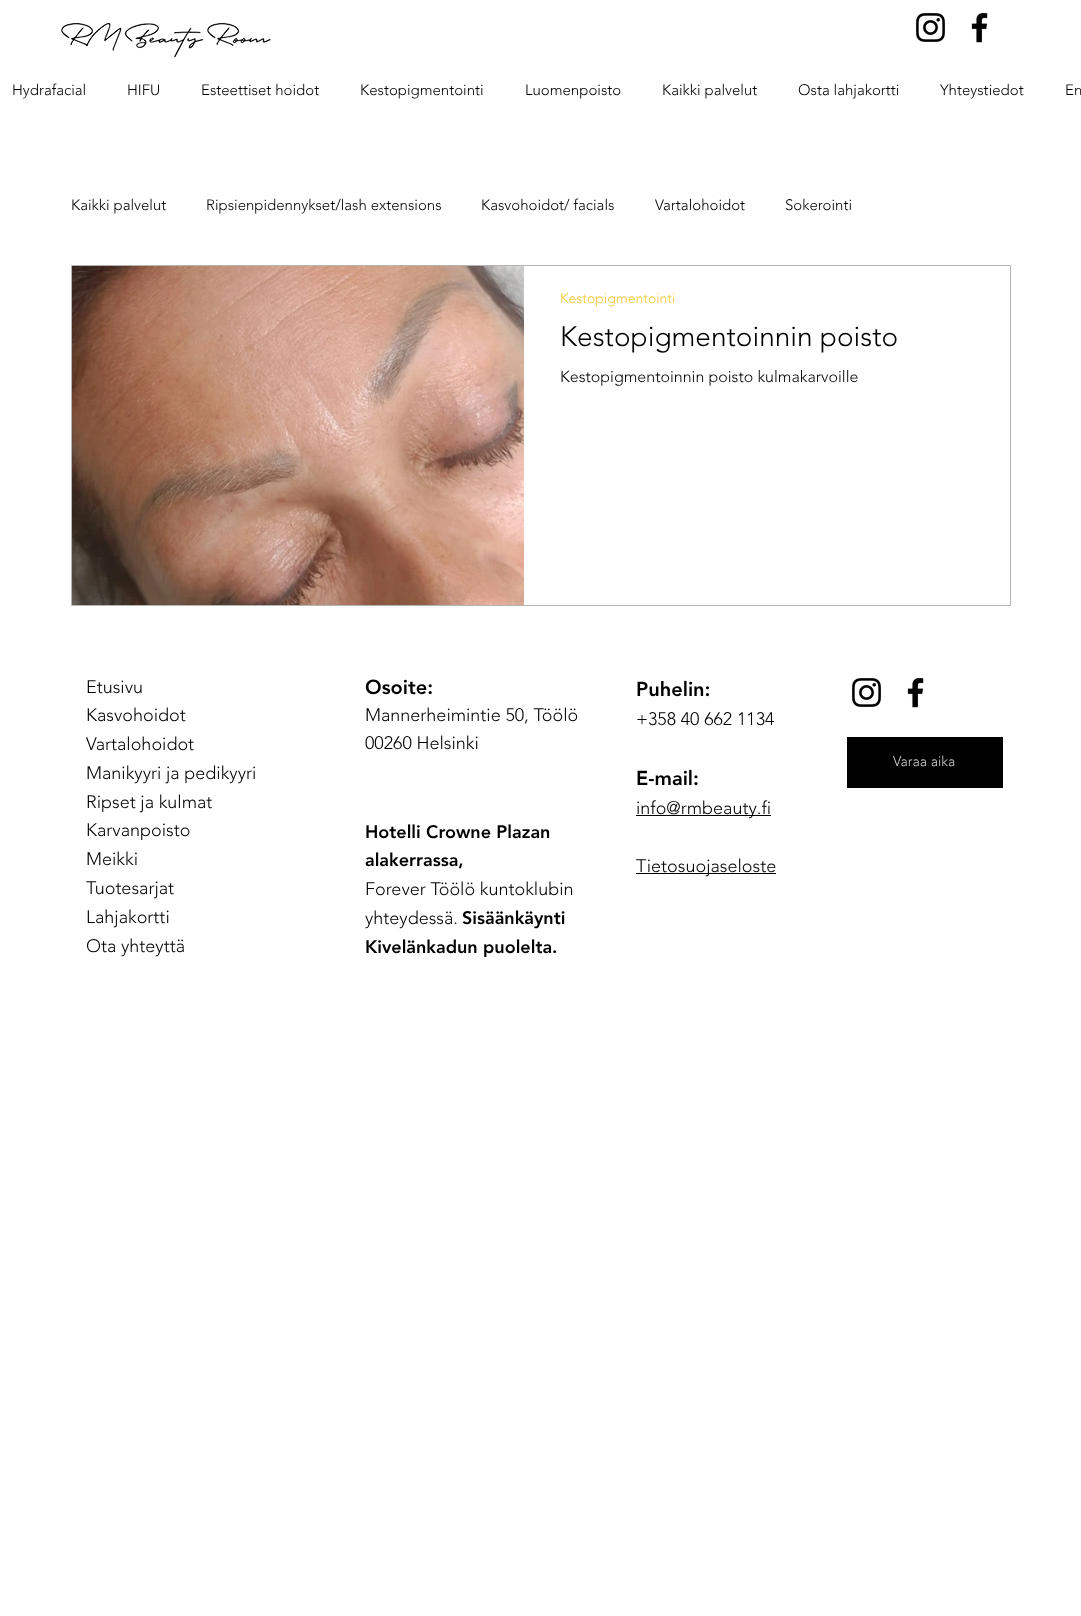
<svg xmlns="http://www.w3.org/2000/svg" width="1081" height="1616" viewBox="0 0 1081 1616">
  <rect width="100%" height="100%" fill="#fff"/>
  <image x="61" y="23" width="210" height="35" href="img/1.png"/>
  <image x="916" y="13" width="29" height="29" href="img/2.png"/>
  <image x="971" y="13" width="17" height="30" href="img/3.png"/>
  <path d="M71.5 265.5h939v340H71.5z" fill="none" stroke="#b3b3b3"/>
  <image x="72" y="266" width="452" height="339" href="img/4.png"/>
  <path d="M636 815h135v1H636z" fill="#000"/>
  <path d="M636 873h140v1H636z" fill="#000"/>
  <image x="852" y="678" width="29" height="29" href="img/2.png"/>
  <image x="907" y="678" width="17" height="30" href="img/3.png"/>
  <path d="M847 737h156v51H847z" fill="#000"/>
  <g font-family="'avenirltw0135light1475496'" font-size="15" font-weight="300" fill="#000">
    <text x="12" y="95">Hydrafacial</text>
    <text x="127" y="95">HIFU</text>
    <text x="201" y="95">Esteettiset hoidot</text>
    <text x="360" y="95">Kestopigmentointi</text>
    <text x="525" y="95">Luomenpoisto</text>
    <text x="662" y="95">Kaikki palvelut</text>
    <text x="798" y="95">Osta lahjakortti</text>
    <text x="940" y="95">Yhteystiedot</text>
    <text x="1065" y="95">En</text>
    <text x="71" y="210">Kaikki palvelut</text>
    <text x="206" y="210">Ripsienpidennykset/lash extensions</text>
    <text x="481" y="210">Kasvohoidot/ facials</text>
    <text x="655" y="210">Vartalohoidot</text>
    <text x="785" y="210">Sokerointi</text>
  </g>
  <text x="560" y="303" font-family="'avenirltw0135light1475496'" font-size="14" font-weight="300" fill="#f2c738">Kestopigmentointi</text>
  <text x="560" y="346" font-family="'avenirltw0135light1475496'" font-size="28" font-weight="300" fill="#000">Kestopigmentoinnin poisto</text>
  <text x="560" y="382" font-family="'avenirltw0135light1475496'" font-size="16" font-weight="300" fill="#000">Kestopigmentoinnin poisto kulmakarvoille</text>
  <g font-family="'avenirltw0135light1475496'" font-size="18" font-weight="300" fill="#000">
    <text x="86" y="693">Etusivu</text>
    <text x="86" y="721">Kasvohoidot</text>
    <text x="86" y="750">Vartalohoidot</text>
    <text x="86" y="779">Manikyyri ja pedikyyri</text>
    <text x="86" y="808">Ripset ja kulmat</text>
    <text x="86" y="836">Karvanpoisto</text>
    <text x="86" y="865">Meikki</text>
    <text x="86" y="894">Tuotesarjat</text>
    <text x="86" y="923">Lahjakortti</text>
    <text x="86" y="952">Ota yhteyttä</text>
  </g>
  <text x="365" y="694" font-family="'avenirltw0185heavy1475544'" font-size="20" font-weight="900" fill="#000">Osoite:</text>
  <g font-family="'avenirltw0135light1475496'" font-size="18" font-weight="300" fill="#000">
    <text x="365" y="721">Mannerheimintie 50, Töölö</text>
    <text x="365" y="749">00260 Helsinki</text>
  </g>
  <text x="636" y="696" font-family="'avenirltw0185heavy1475544'" font-size="20" font-weight="900" fill="#000">Puhelin:</text>
  <text x="636" y="725" font-family="'avenirltw0135light1475496'" font-size="18" font-weight="300" fill="#000">+358 40 662 1134</text>
  <text x="636" y="785" font-family="'avenirltw0185heavy1475544'" font-size="20" font-weight="900" fill="#000">E-mail:</text>
  <g font-family="'avenirltw0135light1475496'" font-size="18" font-weight="300" fill="#000">
    <text x="636" y="814">info@rmbeauty.fi</text>
    <text x="636" y="872">Tietosuojaseloste</text>
  </g>
  <text x="893" y="766" font-family="'avenirltw0135light1475496'" font-size="14" font-weight="300" fill="#ccc">Varaa aika</text>
  <g font-family="'avenirltw0185heavy1475544'" font-size="18" font-weight="900" fill="#000">
    <text x="365" y="838">Hotelli Crowne Plazan</text>
    <text x="365" y="866">alakerrassa,</text>
  </g>
  <g font-family="'avenirltw0135light1475496'" font-size="18" font-weight="300" fill="#000">
    <text x="365" y="895">Forever Töölö kuntoklubin</text>
    <text x="365" y="924">yhteydessä.</text>
  </g>
  <g font-family="'avenirltw0185heavy1475544'" font-size="18" font-weight="900" fill="#000">
    <text x="462" y="924">Sisäänkäynti</text>
    <text x="365" y="953">Kivelänkadun puolelta.</text>
  </g>
</svg>
